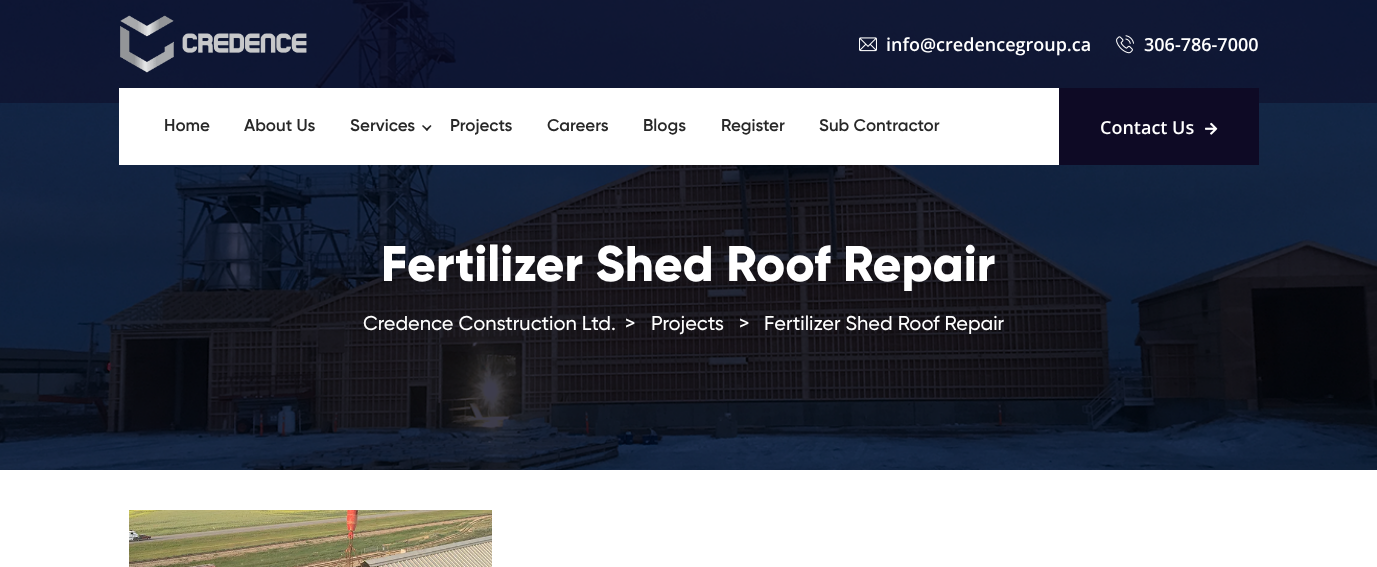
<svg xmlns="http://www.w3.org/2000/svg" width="1377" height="567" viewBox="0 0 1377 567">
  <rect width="100%" height="100%" fill="#fff"/>
  <image x="0" y="0" width="1377" height="470" href="img/5.png"/>
  <path d="M0 0h1377v103H0z" fill="#0e0a2582"/>
  <image x="120" y="15" width="187" height="58" href="img/1.png"/>
  <image x="859" y="37" width="18" height="15" href="img/2.png"/>
  <image x="1116" y="35" width="18" height="19" href="img/3.png"/>
  <path d="M119 88h940v77H119z" fill="#fff"/>
  <path d="M430.5 125L431.5 126L427 131L425.5 129.5Z" fill="#282828"/>
  <path d="M423 125L428 129.5L427 131L422 126Z" fill="#282828"/>
  <path d="M1059 88h200v77H1059z" fill="#0e0a25"/>
  <image x="1205" y="122" width="13" height="13" href="img/4.png"/>
  <image x="129" y="510" width="363" height="57" href="img/6.png"/>
  <g font-family="Open Sans" font-size="18" font-weight="600" fill="#fff">
    <text x="886" y="51">info@credencegroup.ca</text>
    <text x="1144" y="51">306-786-7000</text>
  </g>
  <g font-family="Gilroy" font-size="17" font-weight="600" fill="#282828">
    <text x="164" y="131">Home</text>
    <text x="244" y="131">About Us</text>
    <text x="350" y="131">Services</text>
    <text x="450" y="131">Projects</text>
    <text x="547" y="131">Careers</text>
    <text x="643" y="131">Blogs</text>
    <text x="721" y="131">Register</text>
    <text x="819" y="131">Sub Contractor</text>
  </g>
  <text x="1100" y="134" font-family="Open Sans" font-size="18" font-weight="600" fill="#fff">Contact Us</text>
  <text x="381" y="281" font-family="Gilroy" font-size="50" font-weight="800" fill="#fff">Fertilizer Shed Roof Repair</text>
  <g font-family="Gilroy" font-size="20" font-weight="500" fill="#fff">
    <text x="363" y="330">Credence Construction Ltd.</text>
    <text x="625" y="330">&gt;</text>
    <text x="651" y="330">Projects</text>
    <text x="739" y="330">&gt;</text>
    <text x="764" y="330">Fertilizer Shed Roof Repair</text>
  </g>
</svg>
